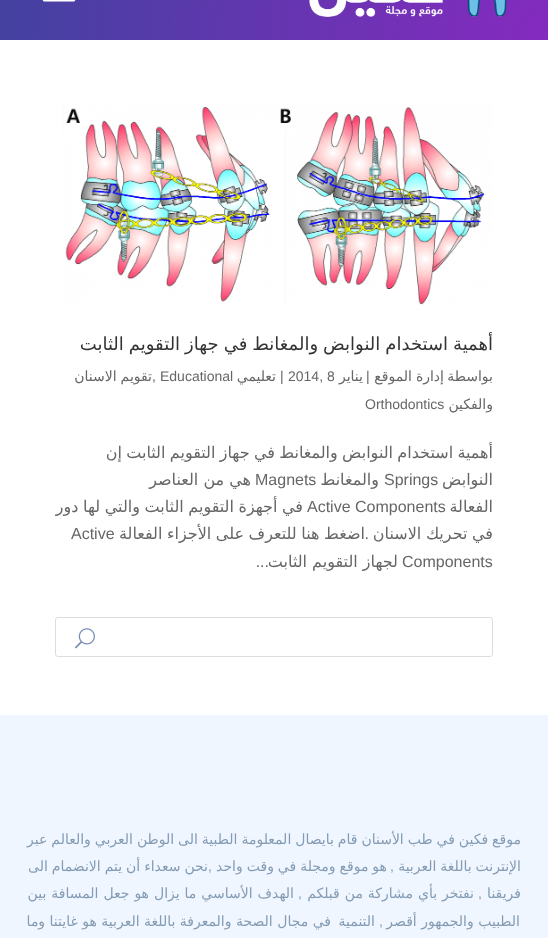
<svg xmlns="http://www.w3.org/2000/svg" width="548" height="938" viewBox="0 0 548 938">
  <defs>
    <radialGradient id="g1" gradientUnits="userSpaceOnUse" cx="548" cy="40" r="558"><stop offset="0" stop-color="#852abf"/><stop offset="1" stop-color="#4242a0"/></radialGradient>
  </defs>
  <rect width="100%" height="100%" fill="#fff"/>
  <path d="M0 0h548v40H0z" fill="url(#g1)"/>
  <image x="309" y="0" width="198" height="17" href="img/1.png"/>
  <image x="42" y="0" width="34" height="2" href="img/2.png"/>
  <image x="62" y="103" width="431" height="202" href="img/3.png"/>
  <rect x="55.5" y="617.5" width="437" height="39" rx="2.5" fill="none" stroke="#ddd"/>
  <image x="75" y="628" width="20" height="21" href="img/4.png"/>
  <path d="M0 715h548v223H0z" fill="#f0f6ff"/>
  <text x="493" y="350" word-spacing="-0.75" font-family="DejaVu Sans" font-size="18" direction="rtl" fill="#333">أهمية استخدام النوابض والمغانط في جهاز التقويم الثابت</text>
  <g font-family="DejaVu Sans" font-size="14" direction="rtl" fill="#666">
    <text x="493" y="381">بواسطة</text>
    <text x="444" y="381" word-spacing="-0.5">إدارة الموقع</text>
  </g>
  <text x="366" y="381" font-family="Liberation Sans" font-size="14" fill="#666">|</text>
  <text x="363" y="381" font-family="DejaVu Sans" font-size="14" direction="rtl" fill="#666">يناير</text>
  <g font-family="Liberation Sans" font-size="14" fill="#666">
    <text x="288" y="381">2014, 8</text>
    <text x="280" y="381">|</text>
  </g>
  <text x="276" y="381" font-family="DejaVu Sans" font-size="14" direction="rtl" fill="#666">تعليمي</text>
  <g font-family="Liberation Sans" font-size="14" fill="#666">
    <text x="160" y="381">Educational</text>
    <text x="152" y="381">,</text>
  </g>
  <g font-family="DejaVu Sans" font-size="14" direction="rtl" fill="#666">
    <text x="152" y="381" word-spacing="-0.5">تقويم الاسنان</text>
    <text x="493" y="409">والفكين</text>
  </g>
  <text x="365" y="409" font-family="Liberation Sans" font-size="14" fill="#666">Orthodontics</text>
  <g font-family="DejaVu Sans" font-size="16" direction="rtl" fill="#666">
    <text x="493" y="458" word-spacing="-0.75">أهمية استخدام النوابض والمغانط في جهاز التقويم الثابت إن</text>
    <text x="493" y="485">النوابض</text>
  </g>
  <text x="384" y="485" font-family="Liberation Sans" font-size="16" fill="#666">Springs</text>
  <text x="379" y="485" font-family="DejaVu Sans" font-size="16" direction="rtl" fill="#666">والمغانط</text>
  <text x="255" y="485" font-family="Liberation Sans" font-size="16" fill="#666">Magnets</text>
  <g font-family="DejaVu Sans" font-size="16" direction="rtl" fill="#666">
    <text x="251" y="485">هي من العناصر</text>
    <text x="493" y="512">الفعالة</text>
  </g>
  <text x="307" y="512" font-family="Liberation Sans" font-size="16" fill="#666">Active Components</text>
  <g font-family="DejaVu Sans" font-size="16" direction="rtl" fill="#666">
    <text x="303" y="512" word-spacing="-0.5">في أجهزة التقويم الثابت والتي لها دور</text>
    <text x="493" y="539" word-spacing="-0.5">في تحريك الاسنان</text>
    <text x="365" y="539" word-spacing="-0.5">اضغط هنا للتعرف على الأجزاء الفعالة</text>
  </g>
  <text x="71" y="539" font-family="Liberation Sans" font-size="16" fill="#666">Active</text>
  <text x="369" y="539" font-family="Liberation Sans" font-size="16" direction="rtl" fill="#666">.</text>
  <text x="402" y="567" font-family="Liberation Sans" font-size="16" fill="#666">Components</text>
  <text x="398" y="567" font-family="DejaVu Sans" font-size="16" direction="rtl" fill="#666">لجهاز التقويم الثابت</text>
  <text x="269" y="567" font-family="Liberation Sans" font-size="16" direction="rtl" fill="#666">...</text>
  <g font-family="DejaVu Sans" font-size="14" direction="rtl" fill="#839bb3">
    <text x="521" y="844" word-spacing="-0.5">موقع فكين في طب الأسنان قام بايصال المعلومة الطبية الى الوطن العربي والعالم عبر</text>
    <text x="521" y="871" word-spacing="-0.5">الإنترنت باللغة العربية</text>
  </g>
  <text x="394" y="871" font-family="Liberation Sans" font-size="14" direction="rtl" fill="#839bb3">,</text>
  <text x="387" y="871" word-spacing="-0.5" font-family="DejaVu Sans" font-size="14" direction="rtl" fill="#839bb3">هو موقع ومجلة في وقت واحد</text>
  <text x="212" y="871" font-family="Liberation Sans" font-size="14" direction="rtl" fill="#839bb3">,</text>
  <g font-family="DejaVu Sans" font-size="14" direction="rtl" fill="#839bb3">
    <text x="208" y="871" word-spacing="-0.5">نحن سعداء أن يتم الانضمام الى</text>
    <text x="521" y="898">فريقنا</text>
  </g>
  <text x="482" y="898" font-family="Liberation Sans" font-size="14" direction="rtl" fill="#839bb3">,</text>
  <text x="474" y="898" word-spacing="0.5" font-family="DejaVu Sans" font-size="14" direction="rtl" fill="#839bb3">نفتخر بأي مشاركة من قبلكم</text>
  <text x="302" y="898" font-family="Liberation Sans" font-size="14" direction="rtl" fill="#839bb3">,</text>
  <g font-family="DejaVu Sans" font-size="14" direction="rtl" fill="#839bb3">
    <text x="294" y="898" word-spacing="0.5">الهدف الأساسي ما يزال هو جعل المسافة بين</text>
    <text x="520" y="926">الطبيب والجمهور أقصر</text>
  </g>
  <text x="383" y="926" font-family="Liberation Sans" font-size="14" direction="rtl" fill="#839bb3">,</text>
  <g font-family="DejaVu Sans" font-size="14" direction="rtl" fill="#839bb3">
    <text x="375" y="926">التنمية</text>
    <text x="331" y="926">في مجال الصحة والمعرفة باللغة العربية هو غايتنا وما</text>
  </g>
</svg>
